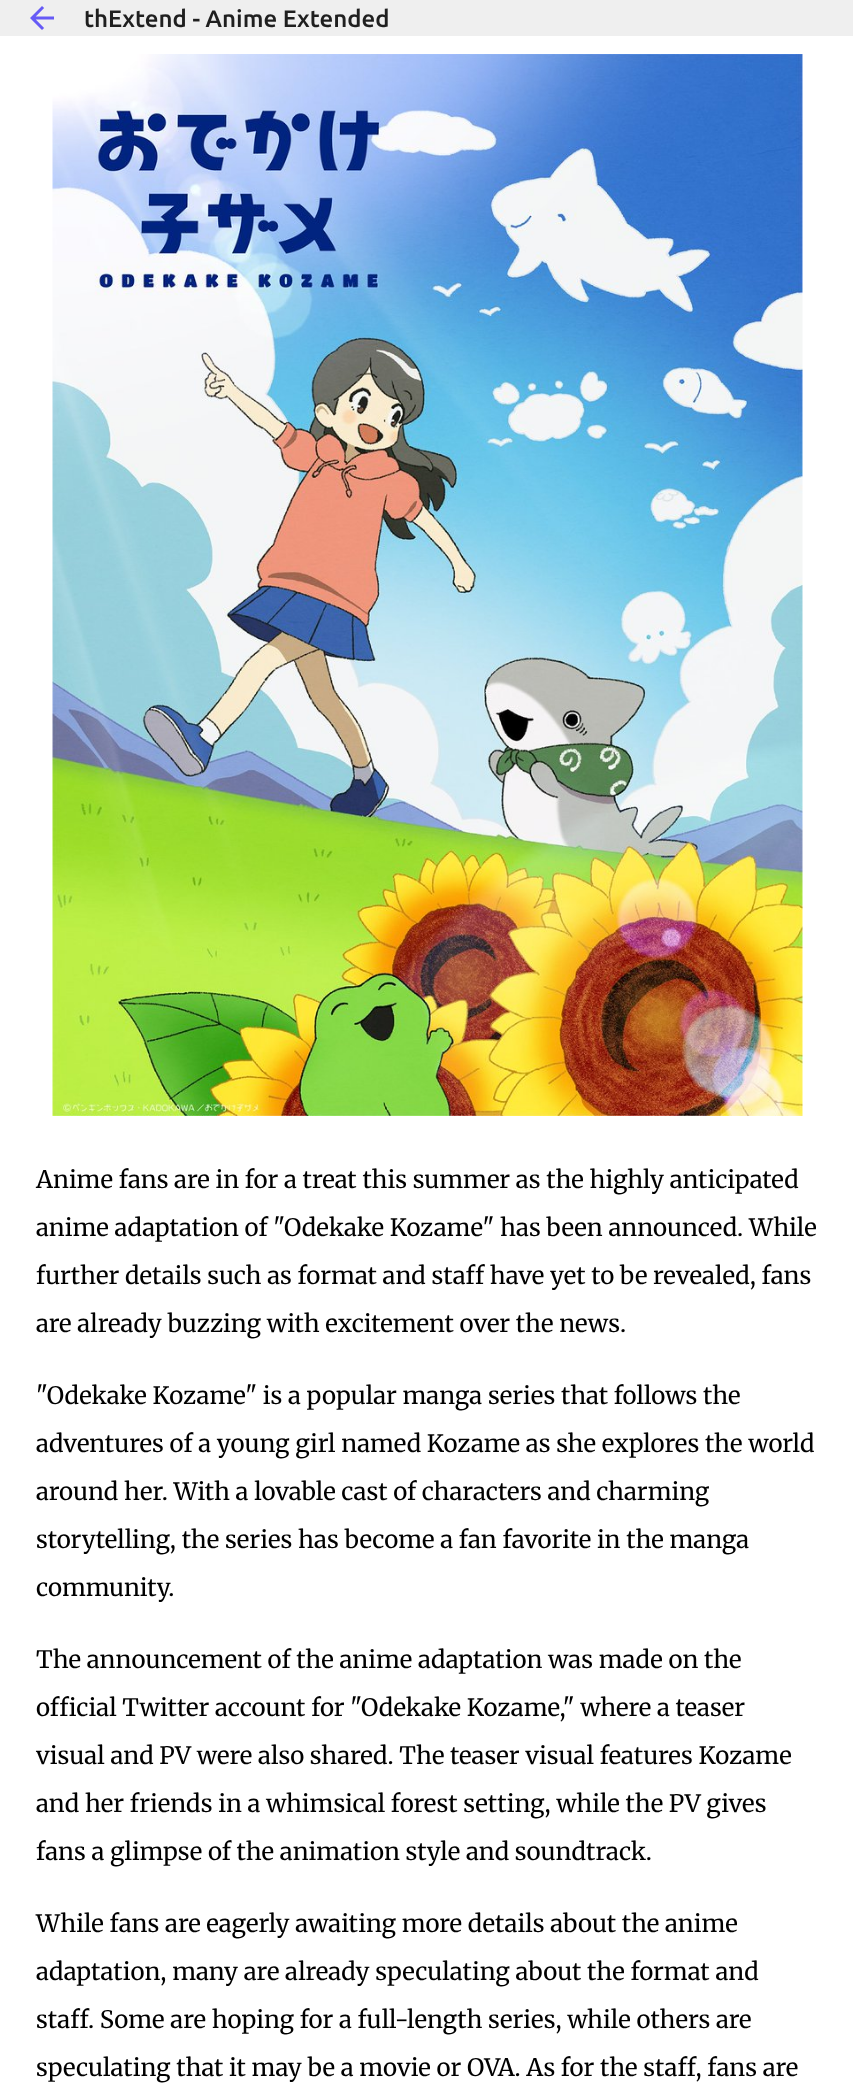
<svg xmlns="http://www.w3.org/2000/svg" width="853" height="2098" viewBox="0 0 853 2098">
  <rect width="100%" height="100%" fill="#fff"/>
  <path d="M0 0h853v36H0z" fill="#efefef"/>
  <image x="30" y="6" width="24" height="24" href="img/1.png"/>
  <image x="52" y="54" width="751" height="1062" href="img/2.png"/>
  <text x="84" y="27" font-family="Ubuntu" font-size="24" font-weight="500" fill="#1f1f1f">thExtend - Anime Extended</text>
  <g font-family="Merriweather" font-size="24" fill="#000">
    <text x="36" y="1188">Anime fans are in for a treat this summer as the highly anticipated</text>
    <text x="36" y="1236">anime adaptation of "Odekake Kozame" has been announced. While</text>
    <text x="36" y="1284">further details such as format and staff have yet to be revealed, fans</text>
    <text x="36" y="1332">are already buzzing with excitement over the news.</text>
    <text x="36" y="1404">"Odekake Kozame" is a popular manga series that follows the</text>
    <text x="36" y="1452">adventures of a young girl named Kozame as she explores the world</text>
    <text x="36" y="1500">around her. With a lovable cast of characters and charming</text>
    <text x="36" y="1548">storytelling, the series has become a fan favorite in the manga</text>
    <text x="36" y="1596">community.</text>
    <text x="36" y="1668">The announcement of the anime adaptation was made on the</text>
    <text x="36" y="1716">official Twitter account for "Odekake Kozame," where a teaser</text>
    <text x="36" y="1764">visual and PV were also shared. The teaser visual features Kozame</text>
    <text x="36" y="1812">and her friends in a whimsical forest setting, while the PV gives</text>
    <text x="36" y="1860">fans a glimpse of the animation style and soundtrack.</text>
    <text x="36" y="1932">While fans are eagerly awaiting more details about the anime</text>
    <text x="36" y="1980">adaptation, many are already speculating about the format and</text>
    <text x="36" y="2028">staff. Some are hoping for a full-length series, while others are</text>
    <text x="36" y="2076">speculating that it may be a movie or OVA. As for the staff, fans are</text>
  </g>
</svg>
